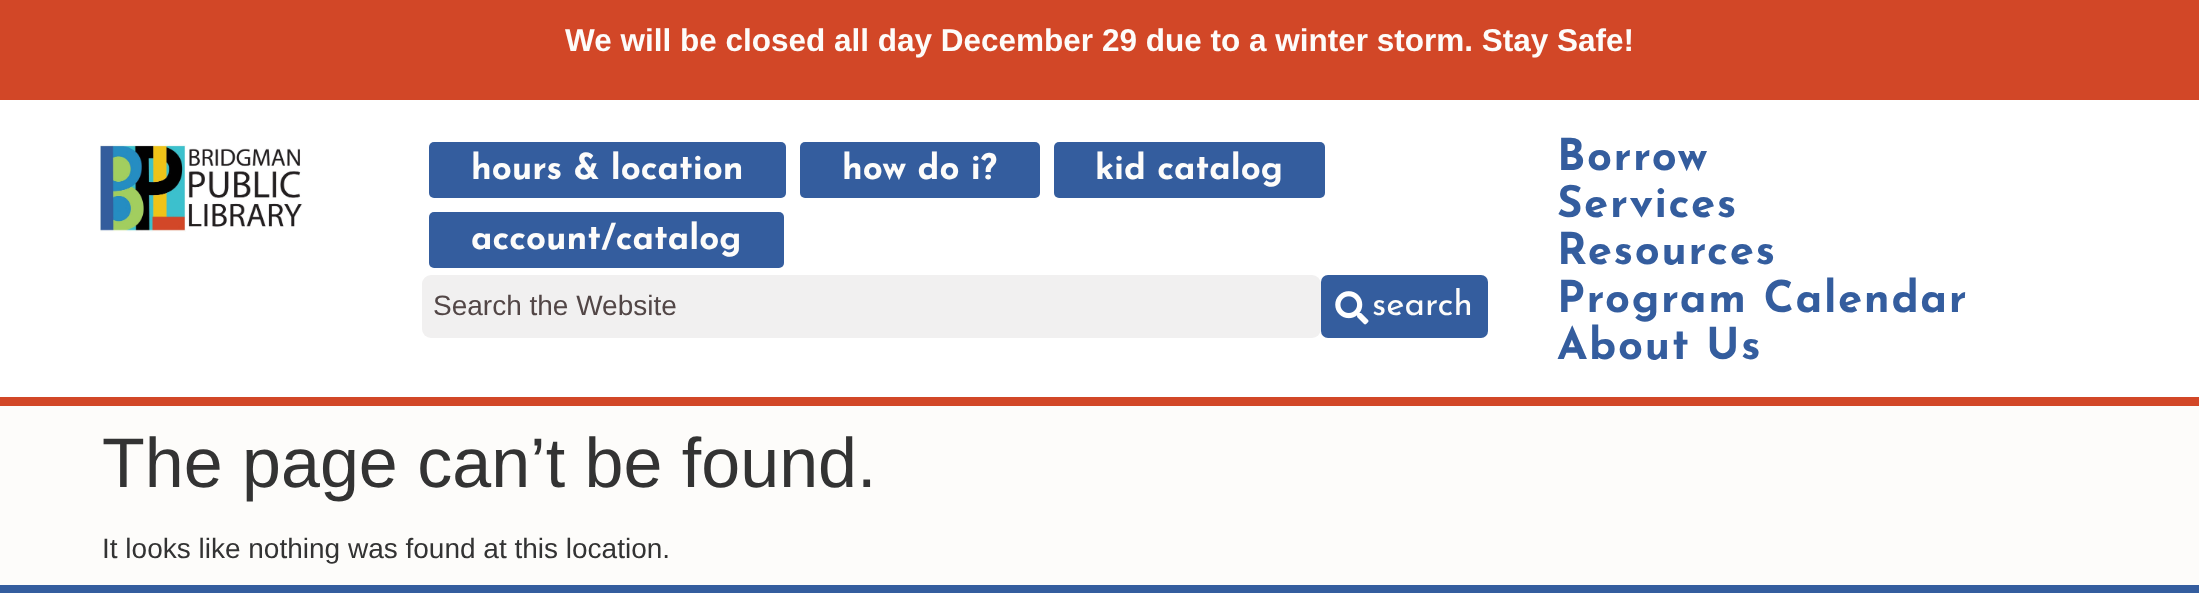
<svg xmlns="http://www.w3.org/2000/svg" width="2199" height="602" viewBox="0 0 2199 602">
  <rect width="100%" height="100%" fill="#fdfcfa"/>
  <path d="M0 0h2199v100H0z" fill="#d24727"/>
  <path d="M0 100h2199v297H0z" fill="#fff"/>
  <path d="M0 397h2199v9H0z" fill="#d24727"/>
  <image x="100" y="144" width="203" height="88" href="img/1.png"/>
  <rect x="429" y="142" width="357" height="56" rx="5" fill="#345d9e"/>
  <rect x="800" y="142" width="240" height="56" rx="5" fill="#345d9e"/>
  <rect x="1054" y="142" width="271" height="56" rx="5" fill="#345d9e"/>
  <rect x="429" y="212" width="355" height="56" rx="5" fill="#345d9e"/>
  <rect x="422" y="275" width="899" height="63" rx="9" fill="#f1f0f0"/>
  <rect x="1321" y="275" width="167" height="63" rx="7" fill="#345d9e"/>
  <image x="1335" y="291" width="34" height="34" href="img/2.png"/>
  <path d="M0 593h2199v9H0z" fill="#fff"/>
  <path d="M0 585h2199v8H0z" fill="#345d9e"/>
  <text x="565" y="51" font-family="Liberation Sans" font-size="31.5" font-weight="bold" fill="#fdfcfa">We will be closed all day December 29 due to a winter storm. Stay Safe!</text>
  <g font-family="Josefin Sans" font-size="35" font-weight="bold" fill="#fdfcfa">
    <text x="471" y="179">hours &amp; location</text>
    <text x="842" y="179">how do i?</text>
    <text x="1095" y="179">kid catalog</text>
    <text x="471" y="249">account/catalog</text>
  </g>
  <text x="433" y="315" font-family="Liberation Sans" font-size="28" fill="#524646">Search the Website</text>
  <text x="1372" y="315" font-family="Josefin Sans" font-size="35" fill="#fdfcfa">search</text>
  <g font-family="Josefin Sans" font-size="43.75" font-weight="bold" letter-spacing="1.6" fill="#345d9e">
    <text x="1557" y="170">Borrow</text>
    <text x="1557" y="217">Services</text>
    <text x="1557" y="264">Resources</text>
    <text x="1557" y="312">Program Calendar</text>
    <text x="1557" y="359">About Us</text>
  </g>
  <text x="102" y="487" font-family="Liberation Sans" font-size="70" fill="#333">The page can’t be found.</text>
  <text x="102" y="558" font-family="Liberation Sans" font-size="28" fill="#333">It looks like nothing was found at this location.</text>
</svg>
